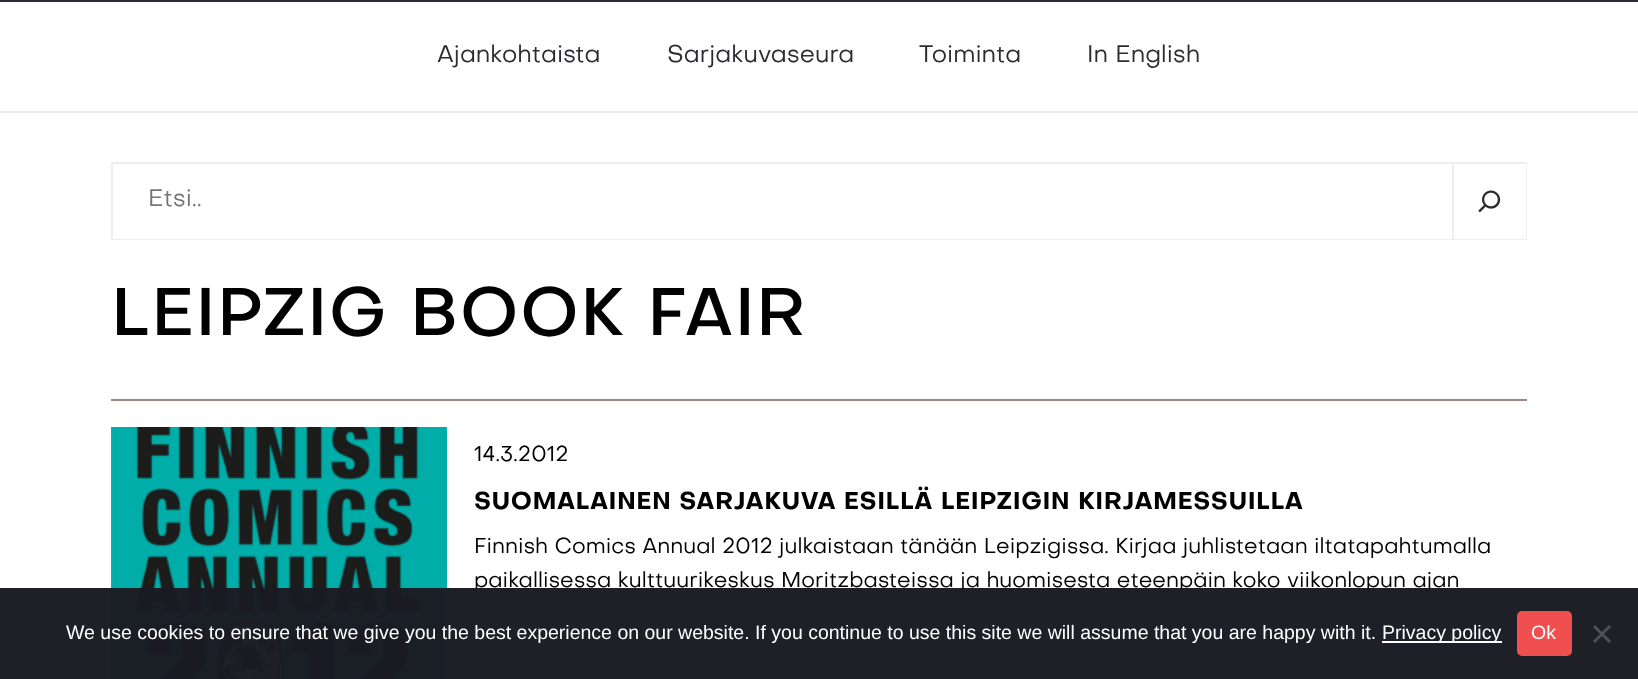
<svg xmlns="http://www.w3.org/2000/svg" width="1638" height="679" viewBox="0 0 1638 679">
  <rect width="100%" height="100%" fill="#fff"/>
  <path d="M0 0h1638v2H0z" fill="#2b2b33"/>
  <path d="M0 111h1638v2H0z" fill="#ededed"/>
  <path d="M111 399h1416v2H111z" fill="#988"/>
  <path d="M112 163h1414v76H112z" fill="none" stroke="#eee" stroke-width="2"/>
  <path d="M113 238h1339v1H113z" fill="#fff"/>
  <path d="M1454 164h72v75H1454z" fill="#fff"/>
  <path d="M1452 164h2v75H1452z" fill="#eee"/>
  <image x="1478" y="190" width="23" height="23" href="img/1.png"/>
  <image x="111" y="427" width="336" height="252" href="img/2.png"/>
  <g font-family="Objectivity" font-size="23.9" fill="#2b2b33">
    <text x="437" y="62">Ajankohtaista</text>
    <text x="667" y="62">Sarjakuvaseura</text>
    <text x="919" y="62">Toiminta</text>
    <text x="1087" y="62">In English</text>
  </g>
  <text x="148" y="206" font-family="Objectivity" font-size="23.9" fill="#757575">Etsi..</text>
  <text x="111" y="335" font-family="Objectivity" font-size="66.5" font-weight="500" letter-spacing="1.3" fill="#000">LEIPZIG BOOK FAIR</text>
  <text x="474" y="461" font-family="Objectivity" font-size="21.45" fill="#000">14.3.2012</text>
  <text x="474" y="509" font-family="Objectivity" font-size="23.9" font-weight="bold" letter-spacing="0.48" fill="#000">SUOMALAINEN SARJAKUVA ESILLÄ LEIPZIGIN KIRJAMESSUILLA</text>
  <g font-family="Objectivity" font-size="21.45" fill="#000">
    <text x="474" y="553" word-spacing="-0.25">Finnish Comics Annual 2012 julkaistaan tänään Leipzigissa. Kirjaa juhlistetaan iltatapahtumalla</text>
    <text x="474" y="587" word-spacing="-0.25">paikallisessa kulttuurikeskus Moritzbasteissa ja huomisesta eteenpäin koko viikonlopun ajan</text>
  </g>
  <path d="M0 588h1638v91H0z" fill="#1b1b23fa"/>
  <text x="66" y="639" font-family="Liberation Sans" font-size="19.5" fill="#fff">We use cookies to ensure that we give you the best experience on our website. If you continue to use this site we will assume that you are happy with it.</text>
  <path d="M1382 641h120v2H1382z" fill="#fff"/>
  <text x="1382" y="639" font-family="Liberation Sans" font-size="19.5" fill="#fff">Privacy policy</text>
  <rect x="1517" y="611" width="55" height="45" rx="5" fill="#ef4f4f"/>
  <text x="1531" y="639" font-family="Liberation Sans" font-size="19.5" fill="#fff">Ok</text>
  <path d="M1609 625L1611 627L1595 643L1593 641Z" fill="#505054"/>
  <path d="M1593 627L1595 625L1611 641L1609 643Z" fill="#505054"/>
</svg>
